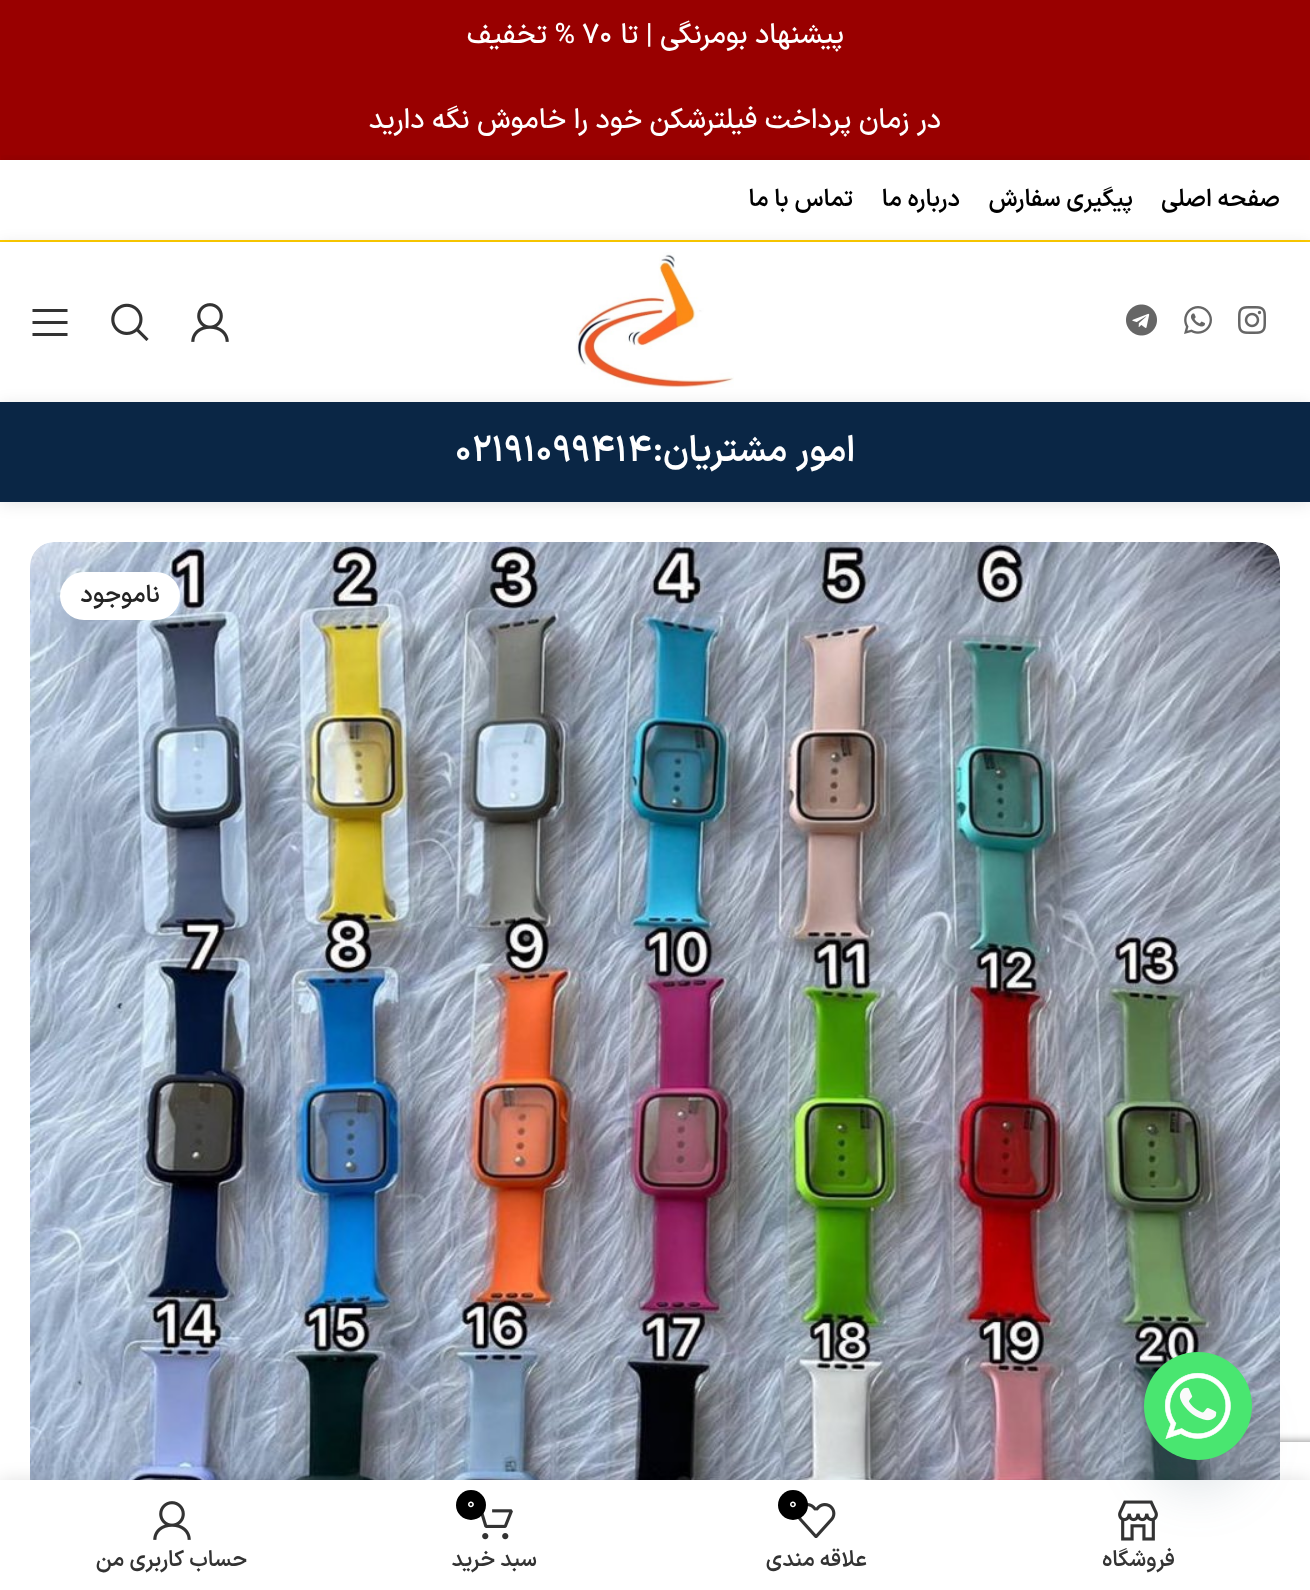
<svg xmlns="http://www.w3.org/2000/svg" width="1310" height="1590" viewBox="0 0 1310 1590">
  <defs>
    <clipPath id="clip1"><path d="M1 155h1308v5H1z"/></clipPath>
    <clipPath id="clip2"><path d="M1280 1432h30v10H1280z"/></clipPath>
  </defs>
  <rect width="100%" height="100%" fill="#fff"/>
  <path d="M0 0h1310v160H0z" fill="#900"/>
  <g clip-path="url(#clip1)">
    <path d="M0 162h1310v82H0z" fill="#0000001a" filter="blur(8px)"/>
  </g>
  <path d="M0 240h1310v2H0z" fill="#fc0"/>
  <path d="M0 244h1310v160H0z" fill="#0000001a" filter="blur(8px)"/>
  <path d="M0 242h1310v160H0z" fill="#fff"/>
  <image x="1238" y="306" width="28" height="28" href="img/1.png"/>
  <image x="1184" y="306" width="28" height="28" href="img/2.png"/>
  <image x="1126" y="304" width="31" height="32" href="img/3.png"/>
  <image x="576" y="252" width="158" height="136" href="img/4.png"/>
  <image x="191" y="303" width="38" height="39" href="img/5.png"/>
  <image x="111" y="303" width="38" height="38" href="img/6.png"/>
  <path d="M32.5 312H67.5V309H32.5ZM32.5 324H67.5V321H32.5ZM32.5 336H67.5V333H32.5Z" fill="#333"/>
  <path d="M0 404h1310v100H0z" fill="#0000001a" filter="blur(8px)"/>
  <path d="M0 402h1310v100H0z" fill="#0a2645"/>
  <g clip-path="url(#clip2)">
    <rect x="1170" y="1442" width="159" height="120" rx="4" fill="#808080" filter="blur(5px)"/>
  </g>
  <image x="30" y="542" width="1250" height="938" href="img/7.png"/>
  <rect x="60" y="572" width="120" height="48" rx="24" fill="#fff"/>
  <path d="M0 1480h1310v110H0z" fill="#0000001f" filter="blur(9px)"/>
  <path d="M0 1480h1310v110H0z" fill="#fff"/>
  <image x="1118" y="1500" width="40" height="41" href="img/9.png"/>
  <rect x="1144" y="1384" width="108" height="108" rx="54" fill="#49687e29" filter="blur(24px)"/>
  <image x="1144" y="1352" width="108" height="108" href="img/8.png"/>
  <image x="798" y="1503" width="38" height="35" href="img/10.png"/>
  <circle cx="793" cy="1505" r="15" fill="#000"/>
  <image x="481" y="1509" width="32" height="31" href="img/11.png"/>
  <circle cx="471" cy="1505" r="15" fill="#000"/>
  <image x="153" y="1501" width="38" height="39" href="img/5.png"/>
  <text x="844" y="43" font-family="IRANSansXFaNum" font-size="28" font-weight="500" direction="rtl" fill="#fff">پیشنهاد بومرنگی | تا</text>
  <text x="582" y="43" font-family="IRANSansXFaNum" font-size="28" font-weight="500" fill="#fff">۷۰</text>
  <g font-family="IRANSansXFaNum" font-size="28" font-weight="500" direction="rtl" fill="#fff">
    <text x="575" y="43">% تخفیف</text>
    <text x="941" y="128">در زمان پرداخت فیلترشکن خود را خاموش نگه دارید</text>
  </g>
  <g font-family="IRANSansXFaNum" font-size="24" font-weight="600" direction="rtl" fill="#000">
    <text x="1280" y="206">صفحه اصلی</text>
    <text x="1133" y="206">پیگیری سفارش</text>
    <text x="960" y="206">درباره ما</text>
    <text x="853" y="206">تماس با ما</text>
  </g>
  <text x="855" y="461" font-family="IRANSansXFaNum" font-size="36" font-weight="600" direction="rtl" fill="#fff">امور مشتریان:</text>
  <text x="455" y="461" font-family="IRANSansXFaNum" font-size="36" font-weight="600" fill="#fff">02191099414</text>
  <text x="160" y="602" font-family="IRANSansXFaNum" font-size="24" font-weight="600" direction="rtl" fill="#242424">ناموجود</text>
  <text x="1175" y="1566" font-family="IRANSansXFaNum" font-size="22" font-weight="600" direction="rtl" fill="#333">فروشگاه</text>
  <text x="789" y="1508" font-family="IRANSansXFaNum" font-size="18" fill="#fff">0</text>
  <text x="867" y="1566" font-family="IRANSansXFaNum" font-size="22" font-weight="600" direction="rtl" fill="#333">علاقه مندی</text>
  <text x="467" y="1508" font-family="IRANSansXFaNum" font-size="18" fill="#fff">0</text>
  <g font-family="IRANSansXFaNum" font-size="22" font-weight="600" direction="rtl" fill="#333">
    <text x="537" y="1566">سبد خرید</text>
    <text x="247" y="1566">حساب کاربری من</text>
  </g>
</svg>
